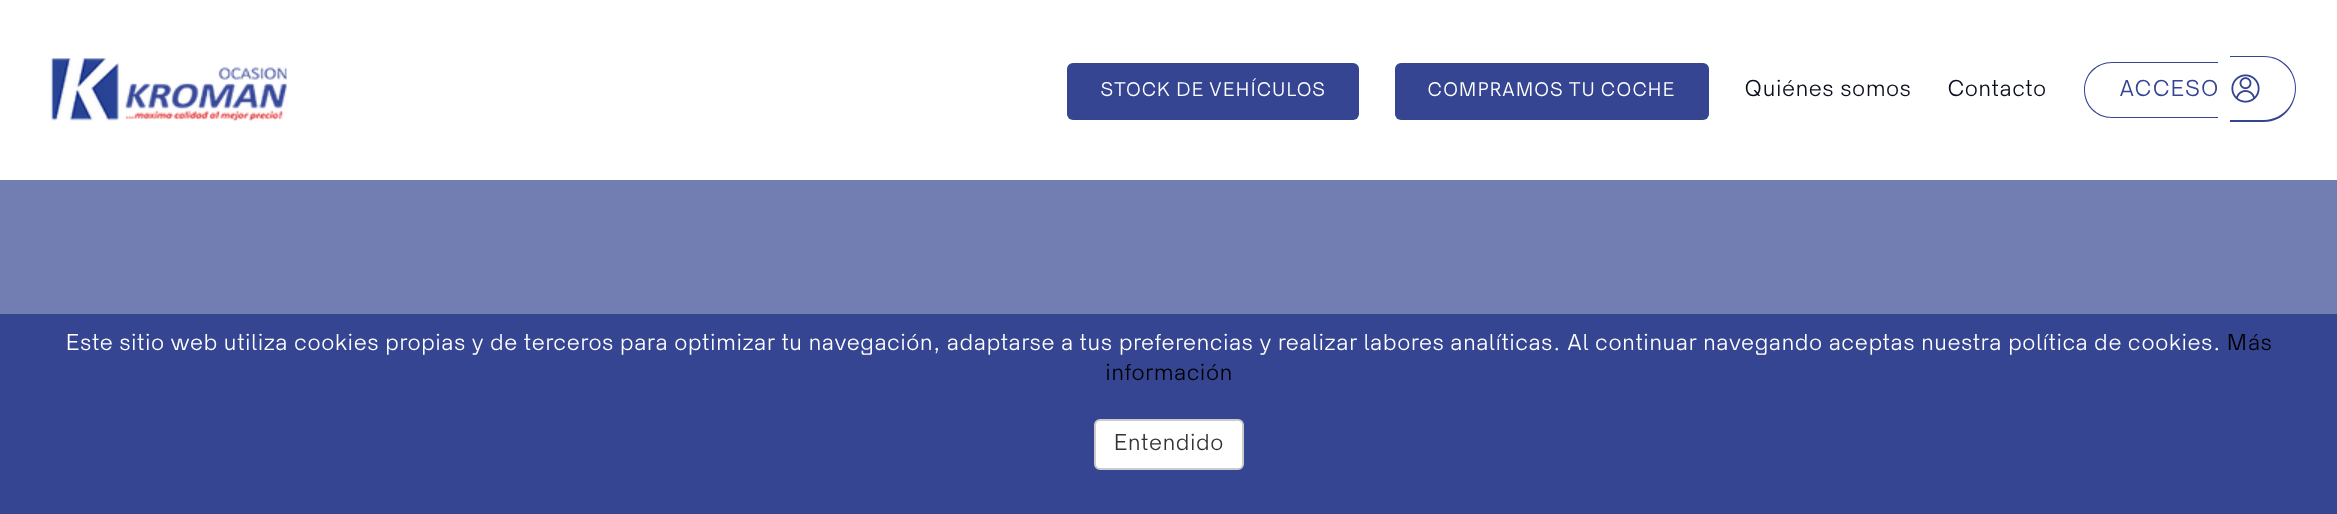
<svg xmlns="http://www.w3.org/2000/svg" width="2337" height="514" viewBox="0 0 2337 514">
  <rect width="100%" height="100%" fill="#727db2"/>
  <path d="M0 0h2337v180H0z" fill="#fff"/>
  <image x="50" y="58" width="237" height="64" href="img/1.png"/>
  <rect x="1067" y="63" width="292" height="57" rx="6" fill="#354591"/>
  <rect x="1395" y="63" width="314" height="57" rx="6" fill="#354591"/>
  <path d="M2112 62H2218V118H2112C2096 118 2084 106 2084 90C2084 74 2096 62 2112 62ZM2112 63H2218V117H2112C2097 117 2085 105 2085 90C2085 75 2097 63 2112 63Z" fill="#354591" fill-rule="evenodd"/>
  <path d="M2230 56H2264C2282 56 2296 70 2296 88C2296 107 2282 122 2264 122H2230ZM2230 57H2264C2281 57 2295 71 2295 88C2295 106 2281 120 2264 120H2230Z" fill="#354591" fill-rule="evenodd"/>
  <image x="2231" y="74" width="29" height="29" href="img/2.png"/>
  <path d="M0 314h2337v200H0z" fill="#354591"/>
  <rect x="1095" y="420" width="148" height="49" rx="5" fill="#fff" stroke="#ccc" stroke-width="2"/>
  <g font-family="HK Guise" font-size="18" fill="#fff">
    <text x="1100" y="96">STOCK DE VEHÍCULOS</text>
    <text x="1427" y="96">COMPRAMOS TU COCHE</text>
  </g>
  <g font-family="HK Guise" font-size="21" fill="#0b0e1d">
    <text x="1744" y="96">Quiénes somos</text>
    <text x="1947" y="96">Contacto</text>
  </g>
  <text x="2119" y="96" font-family="HK Guise" font-size="21" fill="#354591">ACCESO</text>
  <text x="65" y="350" font-family="HK Guise" font-size="21" fill="#fff">Este sitio web utiliza cookies propias y de terceros para optimizar tu navegación, adaptarse a tus preferencias y realizar labores analíticas. Al continuar navegando aceptas nuestra política de cookies.</text>
  <g font-family="HK Guise" font-size="21" fill="#000">
    <text x="2226" y="350">Más</text>
    <text x="1105" y="380">información</text>
  </g>
  <text x="1113" y="450" font-family="HK Guise" font-size="21" fill="#333">Entendido</text>
</svg>
